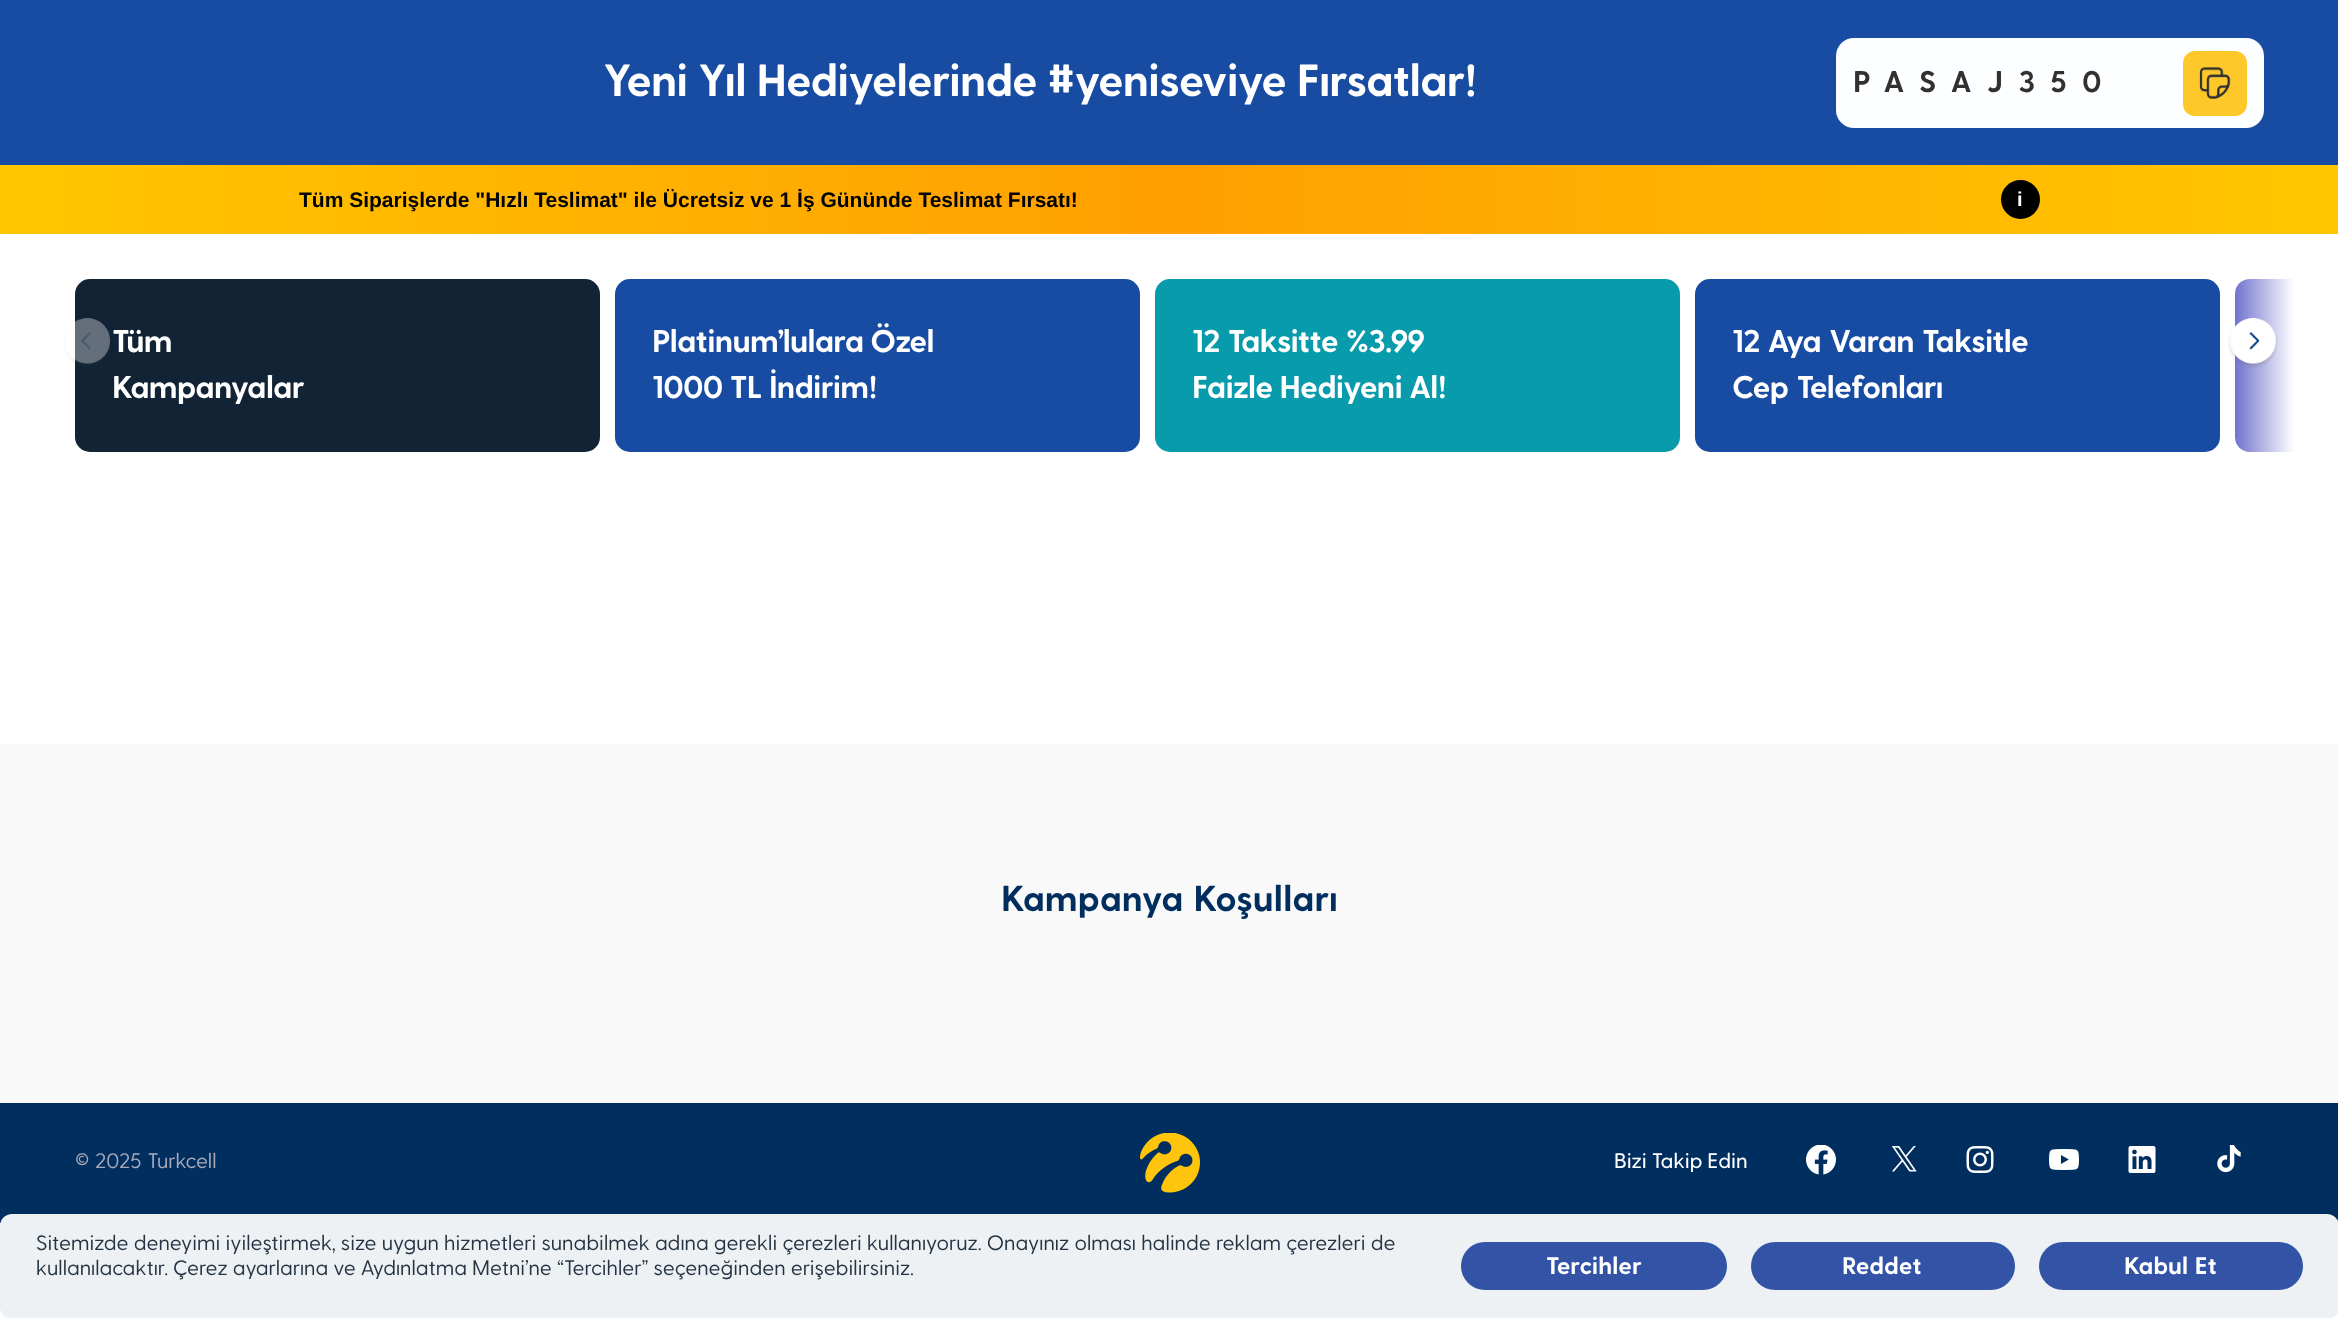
<svg xmlns="http://www.w3.org/2000/svg" width="2338" height="1318" viewBox="0 0 2338 1318">
  <defs>
    <linearGradient id="g1" gradientUnits="userSpaceOnUse" x1="0" y1="200" x2="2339" y2="199"><stop offset="0" stop-color="#ffc700"/><stop offset="0.5" stop-color="#ff9f00"/><stop offset="1" stop-color="#ffc700"/></linearGradient>
    <linearGradient id="g2" gradientUnits="userSpaceOnUse" x1="2294" y1="343" x2="2222" y2="343"><stop offset="0" stop-color="#fff"/><stop offset="1" stop-color="#fff" stop-opacity="0"/></linearGradient>
  </defs>
  <rect width="100%" height="100%" fill="#fff"/>
  <path d="M0 0h2338v165H0z" fill="#184ca2"/>
  <rect x="1836" y="38" width="428" height="90" rx="18" fill="#fcfeff"/>
  <rect x="2183" y="51" width="64" height="65" rx="12" fill="#ffc82a"/>
  <image x="2199" y="67" width="32" height="32" href="img/1.png"/>
  <path d="M0 165h2338v69H0z" fill="url(#g1)"/>
  <circle cx="2020.5" cy="199.5" r="19.5" fill="#000"/>
  <rect x="75" y="279" width="525" height="173" rx="15" fill="#112335"/>
  <image x="64" y="318" width="46" height="48" href="img/2.png"/>
  <path d="M2250 279H2295V452H2250C2241.5 452 2235 445.5 2235 437V294C2235 285.5 2241.5 279 2250 279Z" fill="#5155c2"/>
  <path d="M2235 279h60v173H2235z" fill="url(#g2)"/>
  <rect x="615" y="279" width="525" height="173" rx="15" fill="#184ca2"/>
  <rect x="1155" y="279" width="525" height="173" rx="15" fill="#089bac"/>
  <rect x="1695" y="279" width="525" height="173" rx="15" fill="#184ca2"/>
  <image x="2228" y="318" width="50" height="50" href="img/3.png"/>
  <path d="M0 744h2338v359H0z" fill="#f9f9f9"/>
  <path d="M0 1103h2338v120H0z" fill="#002e5f"/>
  <image x="1140" y="1133" width="60" height="60" href="img/4.png"/>
  <image x="1806" y="1145" width="30" height="30" href="img/5.png"/>
  <image x="1892" y="1146" width="25" height="26" href="img/6.png"/>
  <image x="1966" y="1146" width="28" height="27" href="img/7.png"/>
  <image x="2049" y="1149" width="30" height="21" href="img/8.png"/>
  <image x="2128" y="1146" width="28" height="27" href="img/9.png"/>
  <image x="2217" y="1145" width="24" height="28" href="img/10.png"/>
  <rect y="1214" width="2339" height="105" rx="12" fill="#edf1f3"/>
  <rect x="1461" y="1242" width="266" height="48" rx="24" fill="#3354a6"/>
  <rect x="1751" y="1242" width="264" height="48" rx="24" fill="#3354a6"/>
  <rect x="2039" y="1242" width="264" height="48" rx="24" fill="#3354a6"/>
  <g font-family="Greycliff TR" font-size="45" font-weight="bold" letter-spacing="-0.9" fill="#fff">
    <text x="603" y="96" word-spacing="-1">Yeni Yıl Hediyelerinde</text>
    <text x="1047" y="96" word-spacing="-1">#yeniseviye Fırsatlar!</text>
  </g>
  <text x="1853" y="92" font-family="Greycliff TR" font-size="30" font-weight="bold" letter-spacing="15.25" fill="#313131">PASAJ350</text>
  <text x="299" y="207" font-family="Liberation Sans" font-size="21" font-weight="bold" fill="#000">Tüm Siparişlerde "Hızlı Teslimat" ile Ücretsiz ve 1 İş Gününde Teslimat Fırsatı!</text>
  <text x="2017" y="206" font-family="Liberation Sans" font-size="20" font-weight="bold" fill="#fff">i</text>
  <g font-family="Greycliff TR" font-size="31.5" font-weight="bold" letter-spacing="-0.75" fill="#fff">
    <text x="112" y="352">Tüm</text>
    <text x="112" y="398">Kampanyalar</text>
    <text x="652" y="352" word-spacing="-1">Platinum'lulara Özel</text>
    <text x="652" y="398" word-spacing="-1">1000 TL İndirim!</text>
    <text x="1192" y="352">12 Taksitte %3.99</text>
    <text x="1192" y="398" word-spacing="-1">Faizle Hediyeni Al!</text>
    <text x="1732" y="352">12 Aya Varan Taksitle</text>
    <text x="1732" y="398">Cep Telefonları</text>
  </g>
  <text x="1001" y="911" font-family="Greycliff TR" font-size="36" font-weight="bold" fill="#002e5f">Kampanya Koşulları</text>
  <text x="75" y="1168" font-family="Greycliff TR" font-size="21" fill="#a9abbb">© 2025 Turkcell</text>
  <text x="1614" y="1168" word-spacing="-1" font-family="Greycliff TR" font-size="21" font-weight="500" fill="#fff">Bizi Takip Edin</text>
  <g font-family="Greycliff TR" font-size="21" fill="#253342">
    <text x="36" y="1250" word-spacing="-0.6">Sitemizde deneyimi iyileştirmek, size uygun hizmetleri sunabilmek adına gerekli çerezleri kullanıyoruz. Onayınız olması halinde reklam çerezleri de</text>
    <text x="36" y="1275" word-spacing="-0.75">kullanılacaktır. Çerez ayarlarına ve Aydınlatma Metni'ne “Tercihler” seçeneğinden erişebilirsiniz.</text>
  </g>
  <g font-family="Greycliff TR" font-size="24" font-weight="bold" fill="#fff">
    <text x="1546" y="1274">Tercihler</text>
    <text x="1842" y="1274">Reddet</text>
    <text x="2124" y="1274">Kabul Et</text>
  </g>
</svg>
